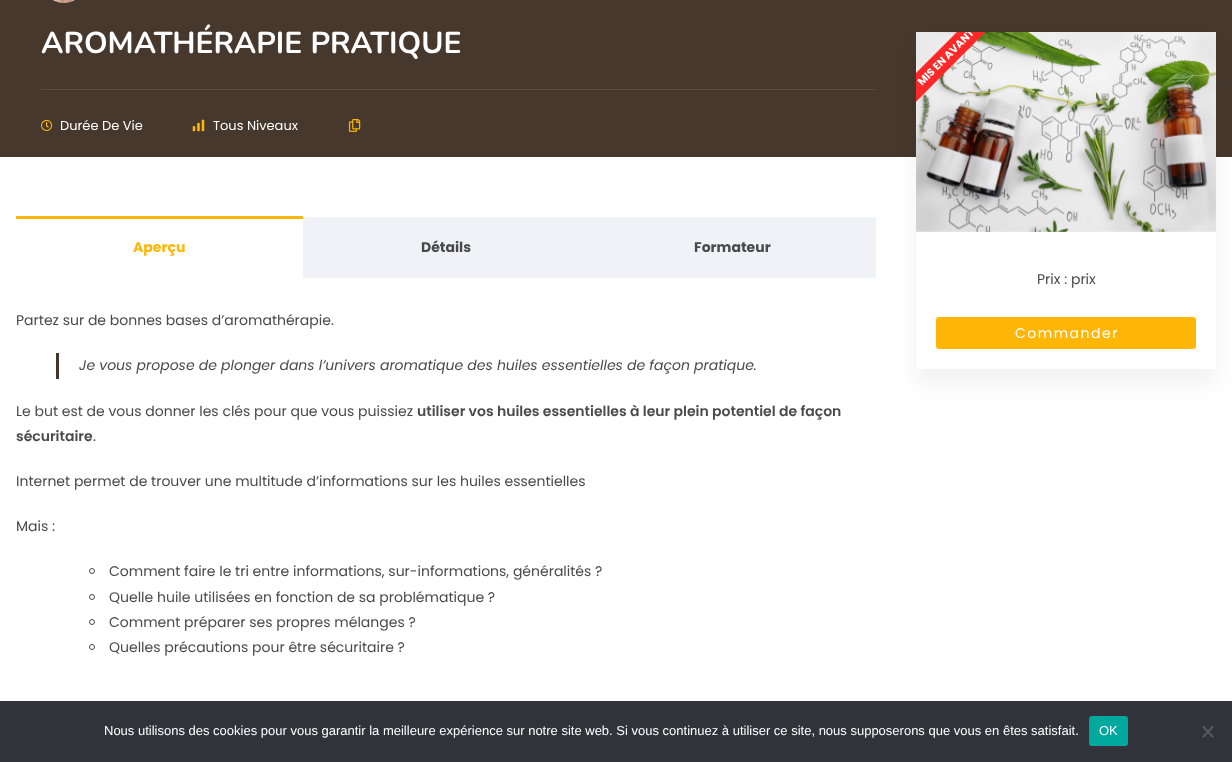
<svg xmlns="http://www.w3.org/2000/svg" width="1232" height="762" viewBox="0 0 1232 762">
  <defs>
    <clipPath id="clip1"><path d="M916 32h300v200H916z"/></clipPath>
  </defs>
  <rect width="100%" height="100%" fill="#fff"/>
  <path d="M0 0h1232v157H0z" fill="#47382d"/>
  <image x="53" y="0" width="22" height="3" href="img/1.png"/>
  <path d="M41 89h835v1H41z" fill="#594c42"/>
  <image x="41" y="119" width="12" height="12" href="img/2.png"/>
  <image x="192" y="119" width="13" height="13" href="img/3.png"/>
  <image x="348" y="119" width="13" height="13" href="img/4.png"/>
  <path d="M916 47h300v337H916z" fill="#0000000d" filter="blur(10px)"/>
  <path d="M916 231h300v138H916z" fill="#fff"/>
  <image x="916" y="32" width="300" height="200" href="img/5.png"/>
  <g clip-path="url(#clip1)">
    <path d="M833 156L1045-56L1059-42L847 171Z" fill="#ff2828"/>
  </g>
  <rect x="936" y="317" width="260" height="32" rx="3" fill="#ffb606"/>
  <path d="M303 217h573v61H303z" fill="#f1f2f8"/>
  <path d="M16 216h287v3H16z" fill="#ffb606"/>
  <path d="M56 353h3v26H56z" fill="#45362d"/>
  <circle cx="92" cy="571" r="2.5" fill="none" stroke="#4a4a4a"/>
  <circle cx="92" cy="597" r="2.5" fill="none" stroke="#4a4a4a"/>
  <circle cx="92" cy="622" r="2.5" fill="none" stroke="#4a4a4a"/>
  <circle cx="92" cy="647" r="2.5" fill="none" stroke="#4a4a4a"/>
  <path d="M0 701h1232v61H0z" fill="#32323a"/>
  <rect x="1089" y="716" width="39" height="30" rx="3" fill="#00a99d"/>
  <path d="M1212.5 725.5L1214 727L1203.5 738L1202 736.5Z" fill="#59595d"/>
  <path d="M1202 727L1203.5 725.5L1214 736.5L1212.5 738Z" fill="#59595d"/>
  <text x="41" y="53" font-family="Nunito" font-size="30.1" font-weight="bold" fill="#fff">AROMATHÉRAPIE PRATIQUE</text>
  <g font-family="Poppins" font-size="13" fill="#fff">
    <text x="60" y="130">Durée De Vie</text>
    <text x="213" y="130">Tous Niveaux</text>
  </g>
  <g clip-path="url(#clip1)">
    <text x="922" y="86" transform="rotate(-45 922 86)" font-family="Poppins" font-size="10.5" font-weight="bold" fill="#fff">MIS EN AVANT</text>
  </g>
  <text x="1037" y="284" font-family="Poppins" font-size="14" fill="#4a4a4a">Prix : prix</text>
  <text x="1015" y="338" font-family="Poppins" font-size="14" letter-spacing="1.5" fill="#fff">Commander</text>
  <text x="133" y="252" font-family="Poppins" font-size="14" font-weight="bold" fill="#ffb606">Aperçu</text>
  <g font-family="Poppins" font-size="14" font-weight="bold" fill="#4a4a4a">
    <text x="421" y="252">Détails</text>
    <text x="694" y="252">Formateur</text>
  </g>
  <text x="16" y="325" font-family="Poppins" font-size="14" fill="#4a4a4a">Partez sur de bonnes bases d’aromathérapie.</text>
  <text x="79" y="370" font-family="Poppins" font-size="14" font-style="italic" fill="#4a4a4a">Je vous propose de plonger dans l’univers aromatique des huiles essentielles de façon pratique.</text>
  <text x="16" y="416" font-family="Poppins" font-size="14" fill="#4a4a4a">Le but est de vous donner les clés pour que vous puissiez</text>
  <g font-family="Poppins" font-size="14" font-weight="600" fill="#4a4a4a">
    <text x="417" y="416">utiliser vos huiles essentielles à leur plein potentiel de façon</text>
    <text x="16" y="441">sécuritaire</text>
  </g>
  <g font-family="Poppins" font-size="14" fill="#4a4a4a">
    <text x="93" y="441">.</text>
    <text x="16" y="486">Internet permet de trouver une multitude d’informations sur les huiles essentielles</text>
    <text x="16" y="531">Mais :</text>
    <text x="109" y="576">Comment faire le tri entre informations, sur-informations, généralités ?</text>
    <text x="109" y="602">Quelle huile utilisées en fonction de sa problématique ?</text>
    <text x="109" y="627">Comment préparer ses propres mélanges ?</text>
    <text x="109" y="652">Quelles précautions pour être sécuritaire ?</text>
  </g>
  <g font-family="Liberation Sans" font-size="13" fill="#fff">
    <text x="104" y="735">Nous utilisons des cookies pour vous garantir la meilleure expérience sur notre site web. Si vous continuez à utiliser ce site, nous supposerons que vous en êtes satisfait.</text>
    <text x="1099" y="735">OK</text>
  </g>
</svg>
